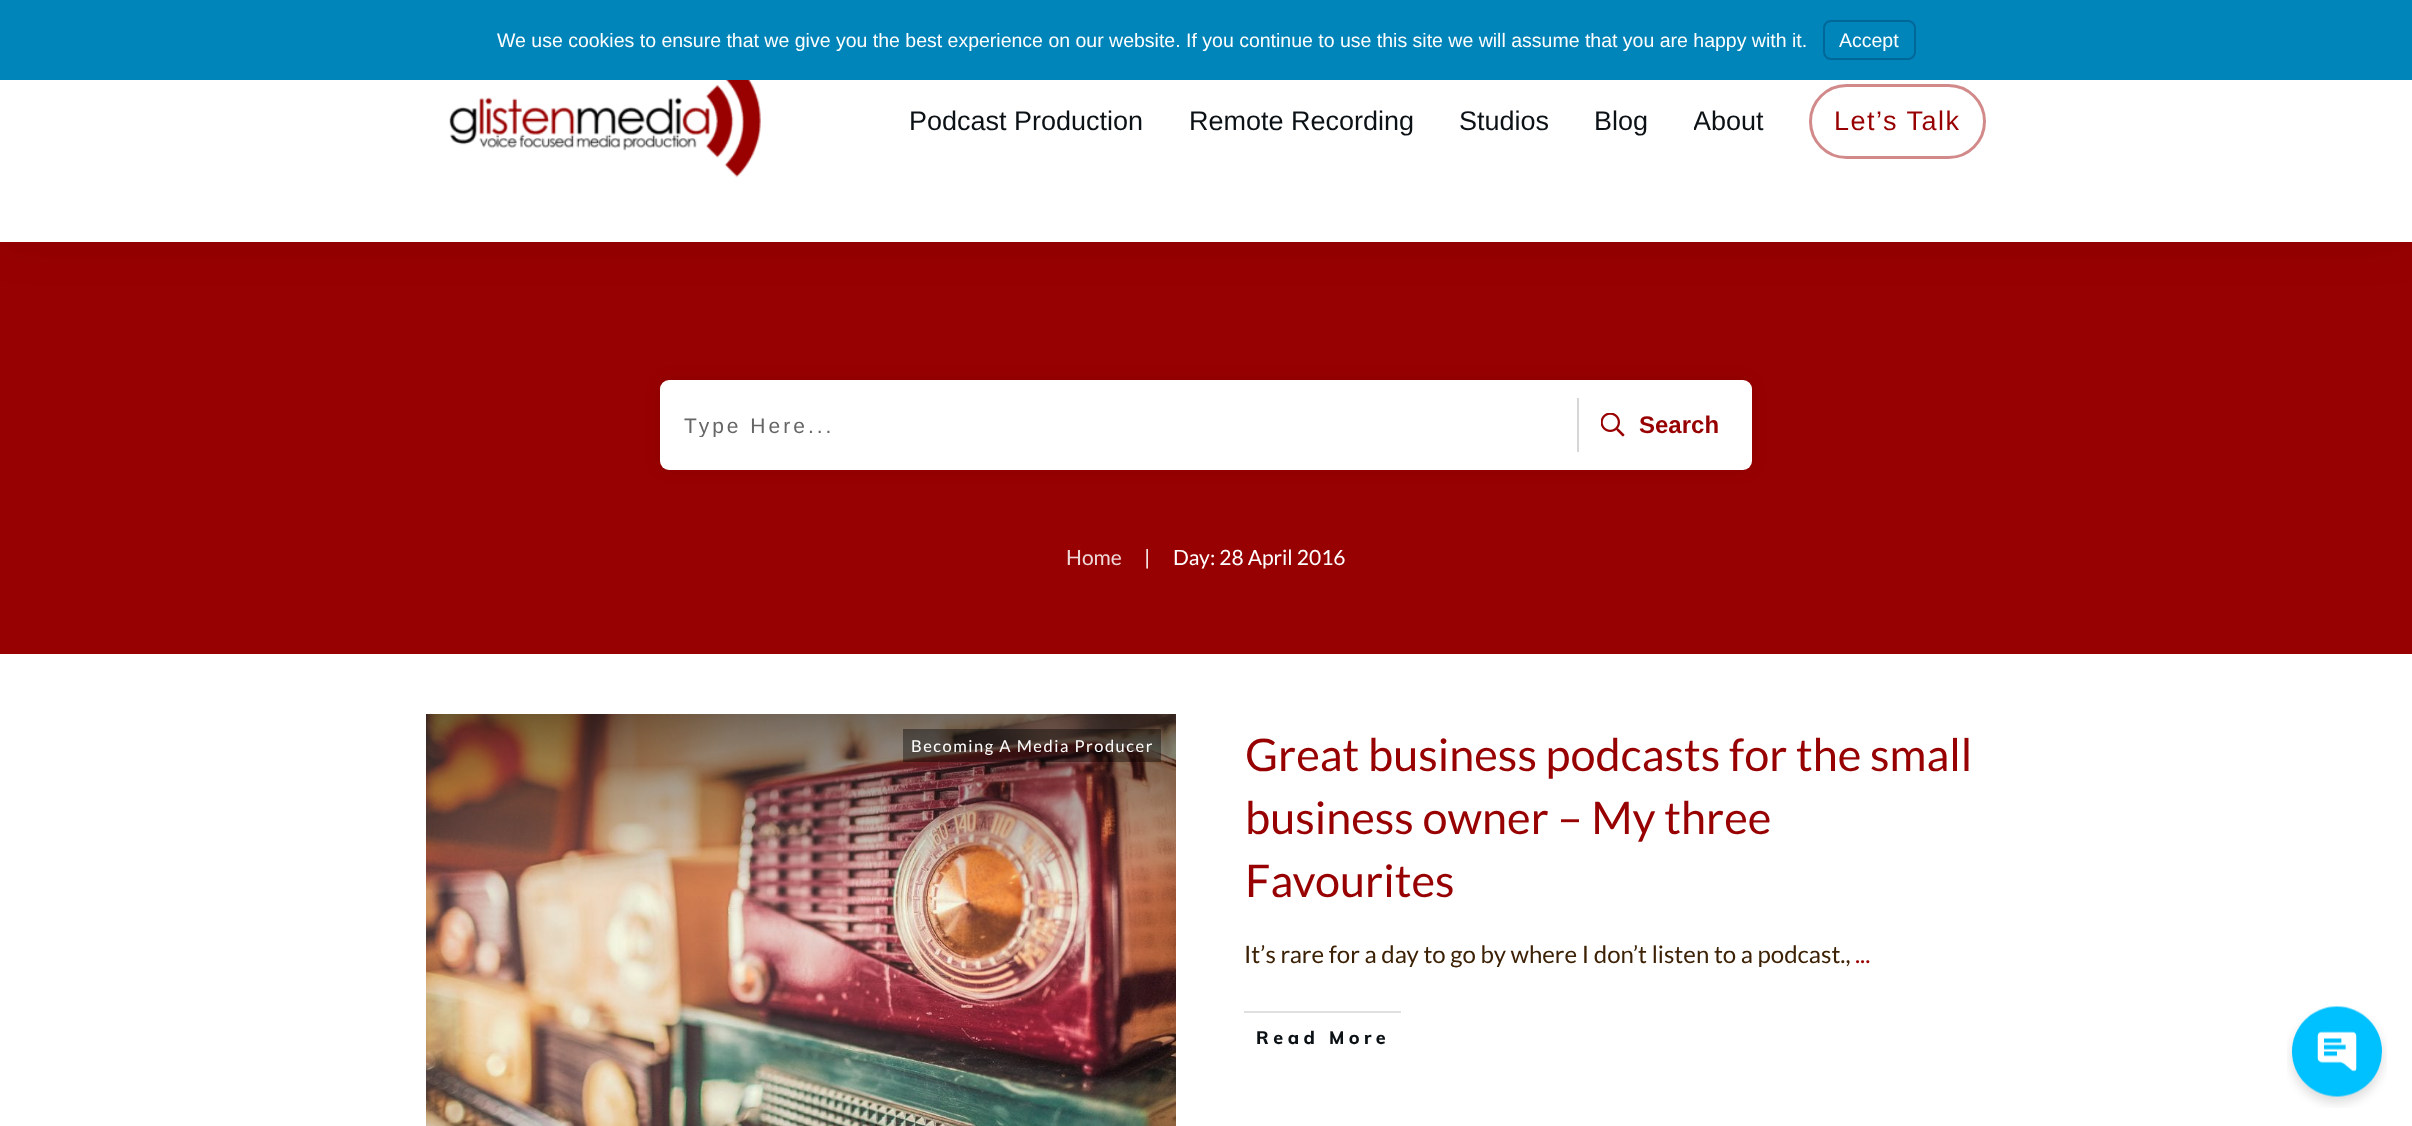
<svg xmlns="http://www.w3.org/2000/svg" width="2412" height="1126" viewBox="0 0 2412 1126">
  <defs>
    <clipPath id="clip1"><path d="M1694 95h70v54H1694z"/></clipPath>
    <clipPath id="clip2"><path d="M684 413h881v24H684z"/></clipPath>
  </defs>
  <rect width="100%" height="100%" fill="#fff"/>
  <path d="M0 242h2412v412H0z" fill="#980101"/>
  <path d="M0 3h2412v242H0z" fill="#00000014" filter="blur(22.5px)"/>
  <path d="M0 0h2412v80H0z" fill="#0085ba"/>
  <rect x="1824" y="21" width="91" height="38" rx="7" fill="none" stroke="#006799" stroke-width="2"/>
  <path d="M0 80h2412v162H0z" fill="#fff"/>
  <image x="449" y="80" width="312" height="98" href="img/1.png"/>
  <rect x="1810.5" y="85.5" width="174" height="72" rx="36" fill="none" stroke="#d28989" stroke-width="3"/>
  <rect x="660" y="380" width="1092" height="90" rx="9" fill="#00000014" filter="blur(8px)"/>
  <rect x="660" y="380" width="1092" height="90" rx="9" fill="#fff"/>
  <path d="M1577 398h2v54H1577z" fill="#d6d6d6"/>
  <image x="1601" y="413" width="24" height="24" href="img/2.png"/>
  <image x="426" y="714" width="750" height="412" href="img/3.png"/>
  <path d="M903 729h258v33H903z" fill="#00000066"/>
  <path d="M1244 1011h157v2H1244z" fill="#e0e0e0"/>
  <image x="2287" y="1006" width="100" height="102" href="img/4.png"/>
  <g font-family="Liberation Sans" font-size="19.5" fill="#fff">
    <text x="497" y="47">We use cookies to ensure that we give you the best experience on our website. If you continue to use this site we will assume that you are happy with it.</text>
    <text x="1839" y="47">Accept</text>
  </g>
  <g font-family="Liberation Sans" font-size="27" fill="#0c1115">
    <text x="909" y="130">Podcast Production</text>
    <text x="1189" y="130">Remote Recording</text>
    <text x="1459" y="130">Studios</text>
    <text x="1594" y="130">Blog</text>
  </g>
  <g clip-path="url(#clip1)">
    <text x="1693" y="130" font-family="Liberation Sans" font-size="27" fill="#0c1115">About</text>
  </g>
  <text x="1834" y="130" font-family="Liberation Sans" font-size="27" letter-spacing="1.5" fill="#980101">Let’s Talk</text>
  <g clip-path="url(#clip2)">
    <text x="684" y="433" font-family="Liberation Sans" font-size="21" letter-spacing="3" fill="#666">Type Here...</text>
  </g>
  <text x="1639" y="433" font-family="Liberation Sans" font-size="24" font-weight="bold" fill="#980101">Search</text>
  <text x="1066" y="565" font-family="Lato" font-size="21" fill="#f0d9d9">Home</text>
  <g font-family="Lato" font-size="21" fill="#fff">
    <text x="1144" y="565">|</text>
    <text x="1173" y="565">Day: 28 April 2016</text>
  </g>
  <text x="911" y="752" font-family="Lato" font-size="16.5" letter-spacing="1.5" fill="#fff">Becoming A Media Producer</text>
  <g font-family="Lato" font-size="45" fill="#980101">
    <text x="1245" y="771">Great business podcasts for the small</text>
    <text x="1245" y="834">business owner – My three</text>
    <text x="1245" y="897">Favourites</text>
  </g>
  <text x="1244" y="963" font-family="Lato" font-size="24" fill="#3d2105">It’s rare for a day to go by where I don’t listen to a podcast.,</text>
  <text x="1855" y="963" font-family="Lato" font-size="24" fill="#980101">...</text>
  <text x="1256" y="1044" font-family="Muli" font-size="18" font-weight="800" letter-spacing="4.5" fill="#0c1115">Read More</text>
</svg>
